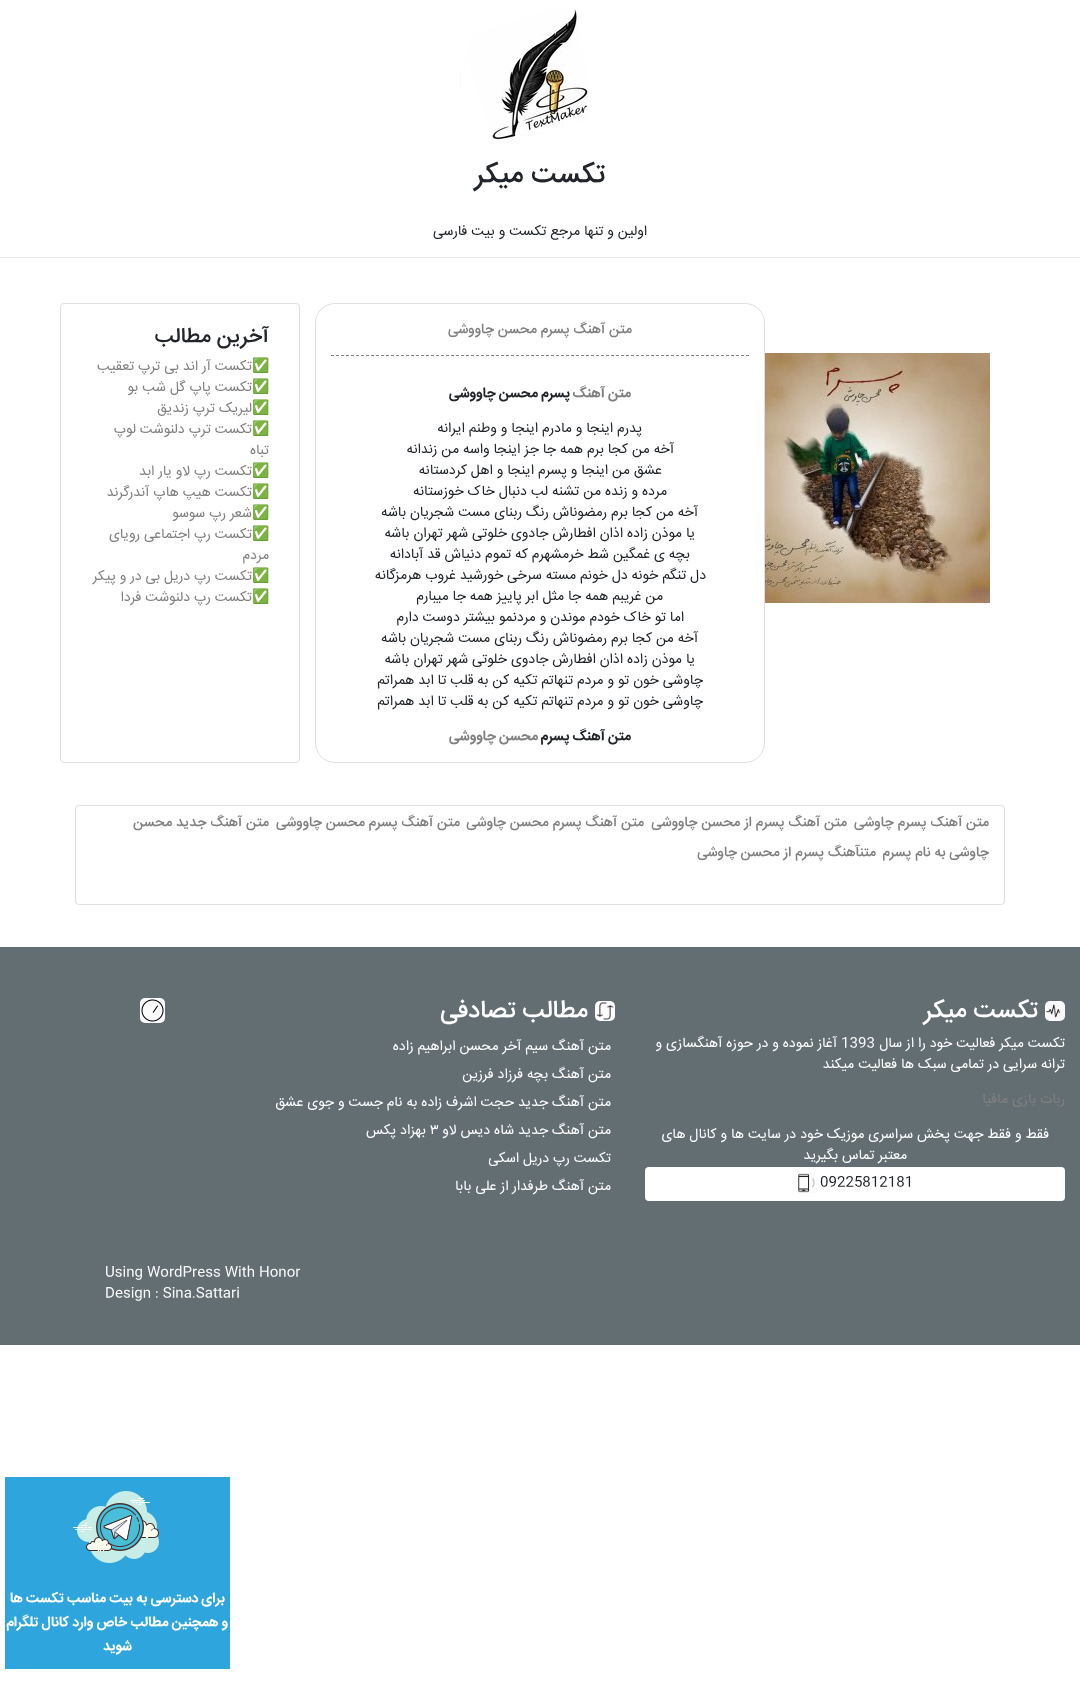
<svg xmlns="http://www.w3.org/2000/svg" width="1080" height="1694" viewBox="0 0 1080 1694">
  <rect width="100%" height="100%" fill="#fff"/>
  <image x="460" y="8" width="128" height="136" href="img/1.png"/>
  <path d="M0 257h1080v1H0z" fill="#e6e6e6"/>
  <image x="765" y="353" width="225" height="250" href="img/2.png"/>
  <rect x="315.5" y="303.5" width="449" height="459" rx="19.5" fill="none" stroke="#dfdfdf"/>
  <path d="M331 355.5H749" fill="none" stroke="#808080" stroke-dasharray="3 2"/>
  <rect x="60.5" y="303.5" width="239" height="459" rx="3.5" fill="none" stroke="#dfdfdf"/>
  <rect x="75.5" y="805.5" width="929" height="99" rx="3.5" fill="none" stroke="#dfdfdf"/>
  <path d="M0 947h1080v398H0z" fill="#636e72"/>
  <image x="1045" y="1001" width="20" height="20" href="img/3.png"/>
  <rect x="645" y="1167" width="420" height="34" rx="4" fill="#fff"/>
  <image x="798" y="1173" width="17" height="20" href="img/4.png"/>
  <image x="595" y="1001" width="20" height="20" href="img/5.png"/>
  <image x="140" y="998" width="25" height="25" href="img/6.png"/>
  <path d="M5 1477h225v192H5z" fill="#2ea5dd"/>
  <image x="73" y="1491" width="86" height="72" href="img/7.png"/>
  <text x="605" y="182" font-family="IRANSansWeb" font-size="28" font-weight="500" direction="rtl" fill="#212529">تکست میکر</text>
  <text x="647" y="235" font-family="IRANSansWeb" font-size="14" direction="rtl" fill="#212529">اولین و تنها مرجع تکست و بیت فارسی</text>
  <text x="632" y="333" font-family="IRANSansWeb" font-size="14" font-weight="500" direction="rtl" fill="#808080">متن آهنگ پسرم محسن چاووشی</text>
  <text x="631" y="397" font-family="IRANSansWeb" font-size="14" font-weight="bold" direction="rtl" fill="#808080">متن آهنگ</text>
  <text x="570" y="397" font-family="IRANSansWeb" font-size="14" font-weight="bold" direction="rtl" fill="#212529">پسرم محسن چاووشی</text>
  <g font-family="IRANSansWeb" font-size="14" direction="rtl" fill="#212529">
    <text x="642" y="432">پدرم اینجا و مادرم اینجا و وطنم ایرانه</text>
    <text x="674" y="453">آخه من کجا برم همه جا جز اینجا واسه من زندانه</text>
    <text x="662" y="474">عشق من اینجا و پسرم اینجا و اهل کردستانه</text>
    <text x="667" y="495">مرده و زنده من تشنه لب دنبال خاک خوزستانه</text>
    <text x="698" y="516">آخه من کجا برم رمضوناش رنگ ربنای مست شجریان باشه</text>
    <text x="695" y="537">یا موذن زاده اذان افطارش جادوی خلوتی شهر تهران باشه</text>
    <text x="690" y="558">بچه ی غمگین شط خرمشهرم که تموم دنیاش قد آبادانه</text>
    <text x="706" y="579">دل تنگم خونه دل خونم مسته سرخی خورشید غروب هرمزگانه</text>
    <text x="663" y="600">من غریبم همه جا مثل ابر پاییز همه جا میبارم</text>
    <text x="684" y="621">اما تو خاک خودم موندن و مردنمو بیشتر دوست دارم</text>
    <text x="698" y="642">آخه من کجا برم رمضوناش رنگ ربنای مست شجریان باشه</text>
    <text x="695" y="663">یا موذن زاده اذان افطارش جادوی خلوتی شهر تهران باشه</text>
    <text x="703" y="684">چاوشی خون تو و مردم تنهاتم تکیه کن به قلب تا ابد همراتم</text>
    <text x="703" y="705">چاوشی خون تو و مردم تنهاتم تکیه کن به قلب تا ابد همراتم</text>
  </g>
  <text x="631" y="740" font-family="IRANSansWeb" font-size="14" font-weight="bold" direction="rtl" fill="#212529">متن آهنگ پسرم</text>
  <text x="538" y="740" font-family="IRANSansWeb" font-size="14" font-weight="bold" direction="rtl" fill="#808080">محسن چاووشی</text>
  <text x="269" y="342" font-family="IRANSansWeb" font-size="21" font-weight="500" direction="rtl" fill="#212529">آخرین مطالب</text>
  <text x="252" y="370" font-family="Noto Color Emoji" font-size="14" fill="#212529">✅</text>
  <text x="252" y="370" font-family="IRANSansWeb" font-size="14" direction="rtl" fill="#808080">تکست آر اند بی ترپ تعقیب</text>
  <text x="252" y="391" font-family="Noto Color Emoji" font-size="14" fill="#212529">✅</text>
  <text x="252" y="391" font-family="IRANSansWeb" font-size="14" direction="rtl" fill="#808080">تکست پاپ گل شب بو</text>
  <text x="252" y="412" font-family="Noto Color Emoji" font-size="14" fill="#212529">✅</text>
  <text x="252" y="412" font-family="IRANSansWeb" font-size="14" direction="rtl" fill="#808080">لیریک ترپ زندیق</text>
  <text x="252" y="433" font-family="Noto Color Emoji" font-size="14" fill="#212529">✅</text>
  <g font-family="IRANSansWeb" font-size="14" direction="rtl" fill="#808080">
    <text x="252" y="433">تکست ترپ دلنوشت لوپ</text>
    <text x="269" y="454">تباه</text>
  </g>
  <text x="252" y="475" font-family="Noto Color Emoji" font-size="14" fill="#212529">✅</text>
  <text x="252" y="475" font-family="IRANSansWeb" font-size="14" direction="rtl" fill="#808080">تکست رپ لاو یار ابد</text>
  <text x="252" y="496" font-family="Noto Color Emoji" font-size="14" fill="#212529">✅</text>
  <text x="252" y="496" font-family="IRANSansWeb" font-size="14" direction="rtl" fill="#808080">تکست هیپ هاپ آندرگرند</text>
  <text x="252" y="517" font-family="Noto Color Emoji" font-size="14" fill="#212529">✅</text>
  <text x="252" y="517" font-family="IRANSansWeb" font-size="14" direction="rtl" fill="#808080">شعر رپ سوسو</text>
  <text x="252" y="538" font-family="Noto Color Emoji" font-size="14" fill="#212529">✅</text>
  <g font-family="IRANSansWeb" font-size="14" direction="rtl" fill="#808080">
    <text x="252" y="538">تکست رپ اجتماعی رویای</text>
    <text x="269" y="559">مردم</text>
  </g>
  <text x="252" y="580" font-family="Noto Color Emoji" font-size="14" fill="#212529">✅</text>
  <text x="252" y="580" font-family="IRANSansWeb" font-size="14" direction="rtl" fill="#808080">تکست رپ دریل بی در و پیکر</text>
  <text x="252" y="601" font-family="Noto Color Emoji" font-size="14" fill="#212529">✅</text>
  <text x="252" y="601" font-family="IRANSansWeb" font-size="14" direction="rtl" fill="#808080">تکست رپ دلنوشت فردا</text>
  <g font-family="IRANSansWeb" font-size="14" font-weight="500" direction="rtl" fill="#808080">
    <text x="989" y="826">متن آهنک پسرم چاوشی</text>
    <text x="847" y="826">متن آهنگ پسرم از محسن چاووشی</text>
    <text x="644" y="826">متن آهنگ پسرم محسن چاوشی</text>
    <text x="460" y="826">متن آهنگ پسرم محسن چاووشی</text>
    <text x="269" y="826">متن آهنگ جدید محسن</text>
    <text x="989" y="856">چاوشی به نام پسرم</text>
    <text x="876" y="856">متنآهنگ پسرم از محسن چاوشی</text>
  </g>
  <text x="1038" y="1017" font-family="IRANSansWeb" font-size="24.5" font-weight="500" direction="rtl" fill="#fff">تکست میکر</text>
  <text x="1065" y="1047" font-family="IRANSansWeb" font-size="14" direction="rtl" fill="#fff">تکست میکر فعالیت خود را از سال</text>
  <text x="841" y="1047" font-family="IRANSansWeb" font-size="14" fill="#fff">1393</text>
  <g font-family="IRANSansWeb" font-size="14" direction="rtl" fill="#fff">
    <text x="837" y="1047">آغاز نموده و در حوزه آهنگسازی و</text>
    <text x="1065" y="1068">ترانه سرایی در تمامی سبک ها فعالیت میکند</text>
  </g>
  <text x="1065" y="1103" font-family="IRANSansWeb" font-size="14" direction="rtl" fill="#808080">ربات بازی مافیا</text>
  <g font-family="IRANSansWeb" font-size="14" direction="rtl" fill="#fff">
    <text x="1049" y="1138">فقط و فقط جهت پخش سراسری موزیک خود در سایت ها و کانال های</text>
    <text x="907" y="1159">معتبر تماس بگیرید</text>
  </g>
  <text x="820" y="1186" font-family="IRANSansWeb" font-size="14" fill="#212529">09225812181</text>
  <text x="588" y="1017" font-family="IRANSansWeb" font-size="24.5" font-weight="500" direction="rtl" fill="#fff">مطالب تصادفی</text>
  <g font-family="IRANSansWeb" font-size="14" direction="rtl" fill="#fff">
    <text x="611" y="1050">متن آهنگ سیم آخر محسن ابراهیم زاده</text>
    <text x="611" y="1078">متن آهنگ بچه فرزاد فرزین</text>
    <text x="611" y="1106">متن آهنگ جدید حجت اشرف زاده به نام جست و جوی عشق</text>
    <text x="611" y="1134">متن آهنگ جدید شاه دیس لاو</text>
  </g>
  <text x="430" y="1134" font-family="IRANSansWeb" font-size="14" fill="#fff">۳</text>
  <g font-family="IRANSansWeb" font-size="14" direction="rtl" fill="#fff">
    <text x="426" y="1134">بهزاد پکس</text>
    <text x="611" y="1162">تکست رپ دریل اسکی</text>
    <text x="611" y="1190">متن آهنگ طرفدار از علی بابا</text>
  </g>
  <g font-family="IRANSansWeb" font-size="14" fill="#fff">
    <text x="105" y="1276">Using WordPress With Honor</text>
    <text x="105" y="1297">Design : Sina.Sattari</text>
  </g>
  <g font-family="IRANSansWeb" font-size="14" font-weight="bold" direction="rtl" fill="#fff">
    <text x="225" y="1602">برای دسترسی به بیت مناسب تکست ها</text>
    <text x="228" y="1626">و همچنین مطالب خاص وارد کانال تلگرام</text>
    <text x="132" y="1650">شوید</text>
  </g>
</svg>
